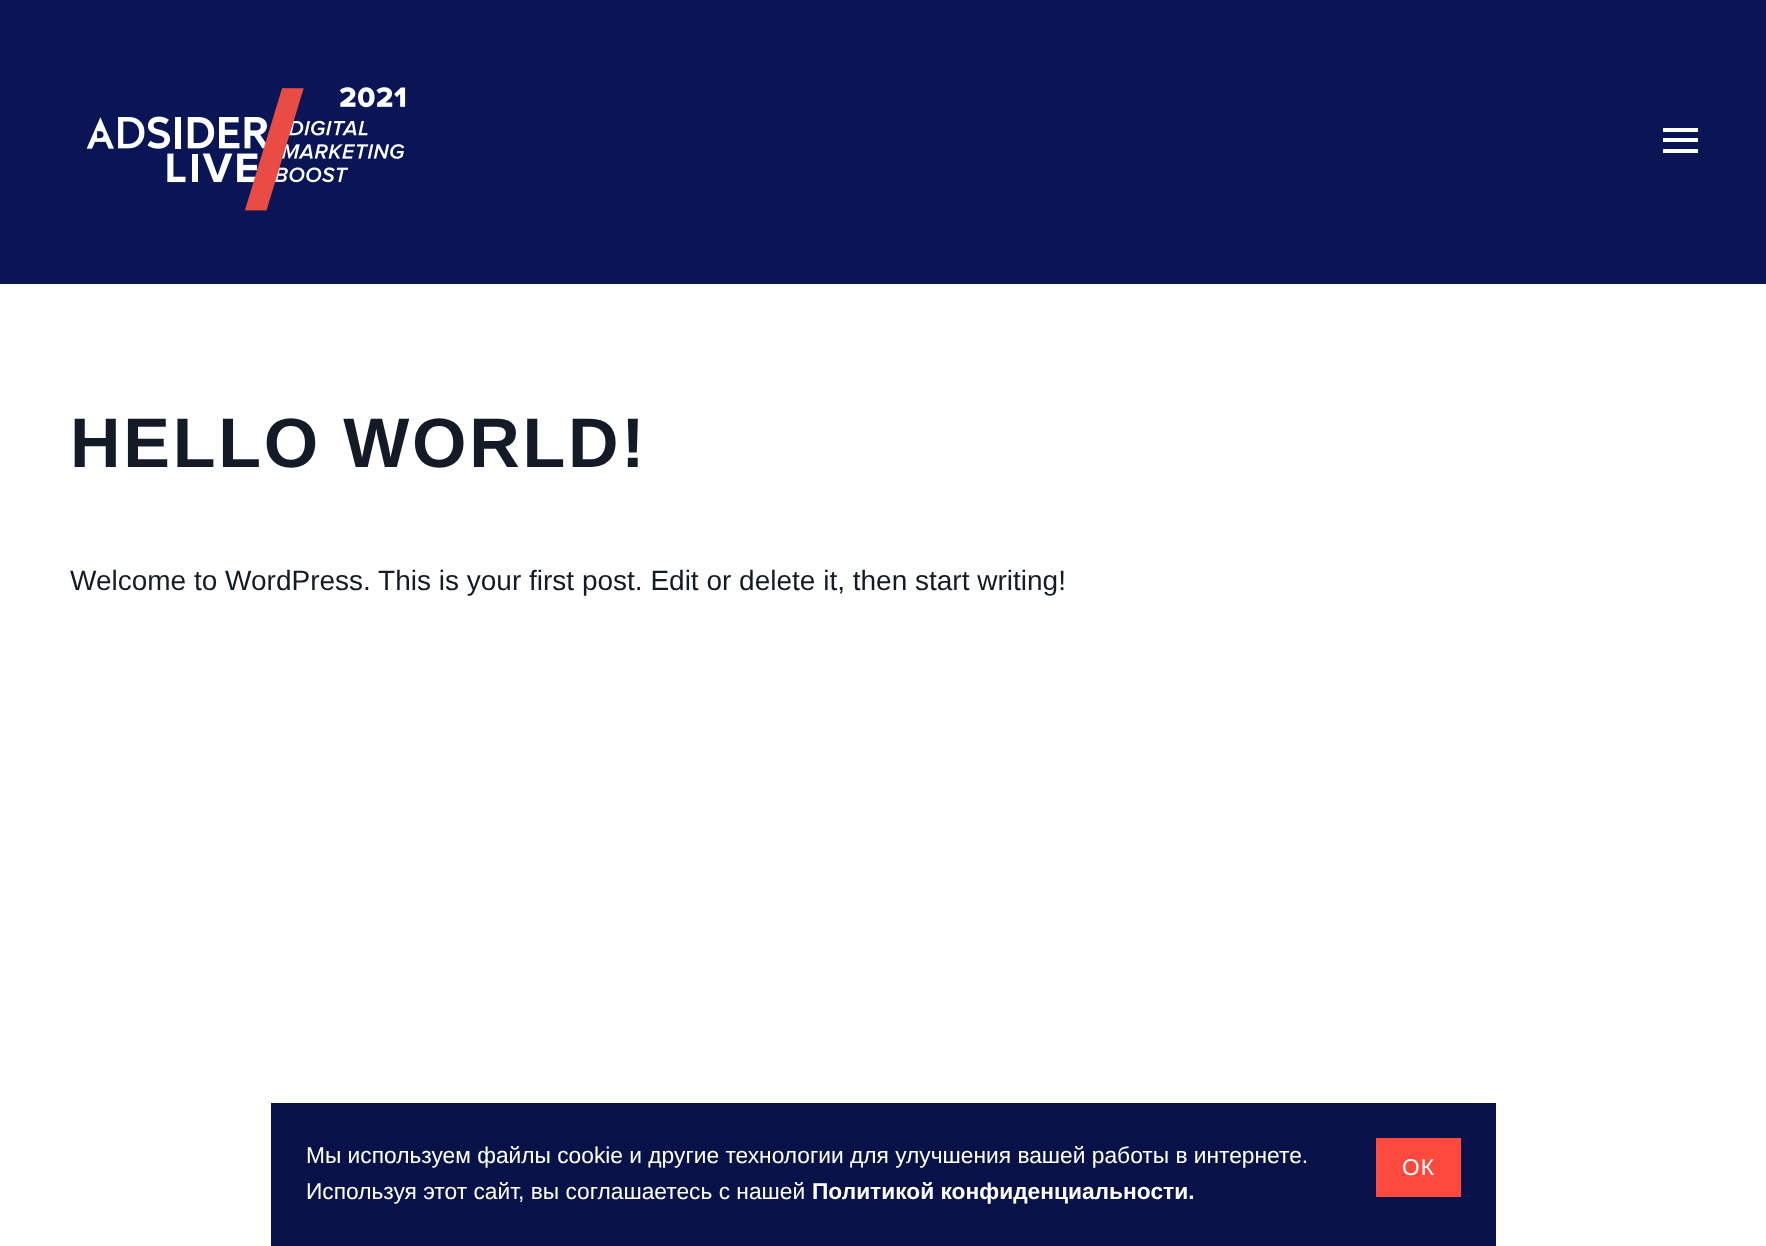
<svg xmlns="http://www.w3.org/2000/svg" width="1766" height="1246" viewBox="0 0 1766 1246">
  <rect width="100%" height="100%" fill="#fff"/>
  <path d="M0 0h1766v284H0z" fill="#091554"/>
  <image x="86" y="87" width="320" height="124" href="img/1.png"/>
  <path d="M1663 128h35v4H1663z" fill="#fff"/>
  <path d="M1663 138h35v4H1663z" fill="#fff"/>
  <path d="M1663 149h35v4H1663z" fill="#fff"/>
  <path d="M271 1103h1225v143H271z" fill="#081248"/>
  <path d="M1376 1138h85v59H1376z" fill="#fe4a3e"/>
  <text x="70" y="467" font-family="Liberation Sans" font-size="70" font-weight="bold" letter-spacing="2.75" fill="#131b26">HELLO WORLD!</text>
  <text x="70" y="590" font-family="Liberation Sans" font-size="28" fill="#131b26">Welcome to WordPress. This is your first post. Edit or delete it, then start writing!</text>
  <g font-family="Liberation Sans" font-size="22.75" fill="#fff">
    <text x="306" y="1163">Мы используем файлы cookie и другие технологии для улучшения вашей работы в интернете.</text>
    <text x="306" y="1199">Используя этот сайт, вы соглашаетесь c нашей</text>
  </g>
  <text x="812" y="1199" font-family="Liberation Sans" font-size="22.75" font-weight="bold" fill="#fff">Политикой конфиденциальности.</text>
  <text x="1402" y="1175" font-family="Liberation Sans" font-size="22.75" letter-spacing="1" fill="#fff">ОК</text>
</svg>
